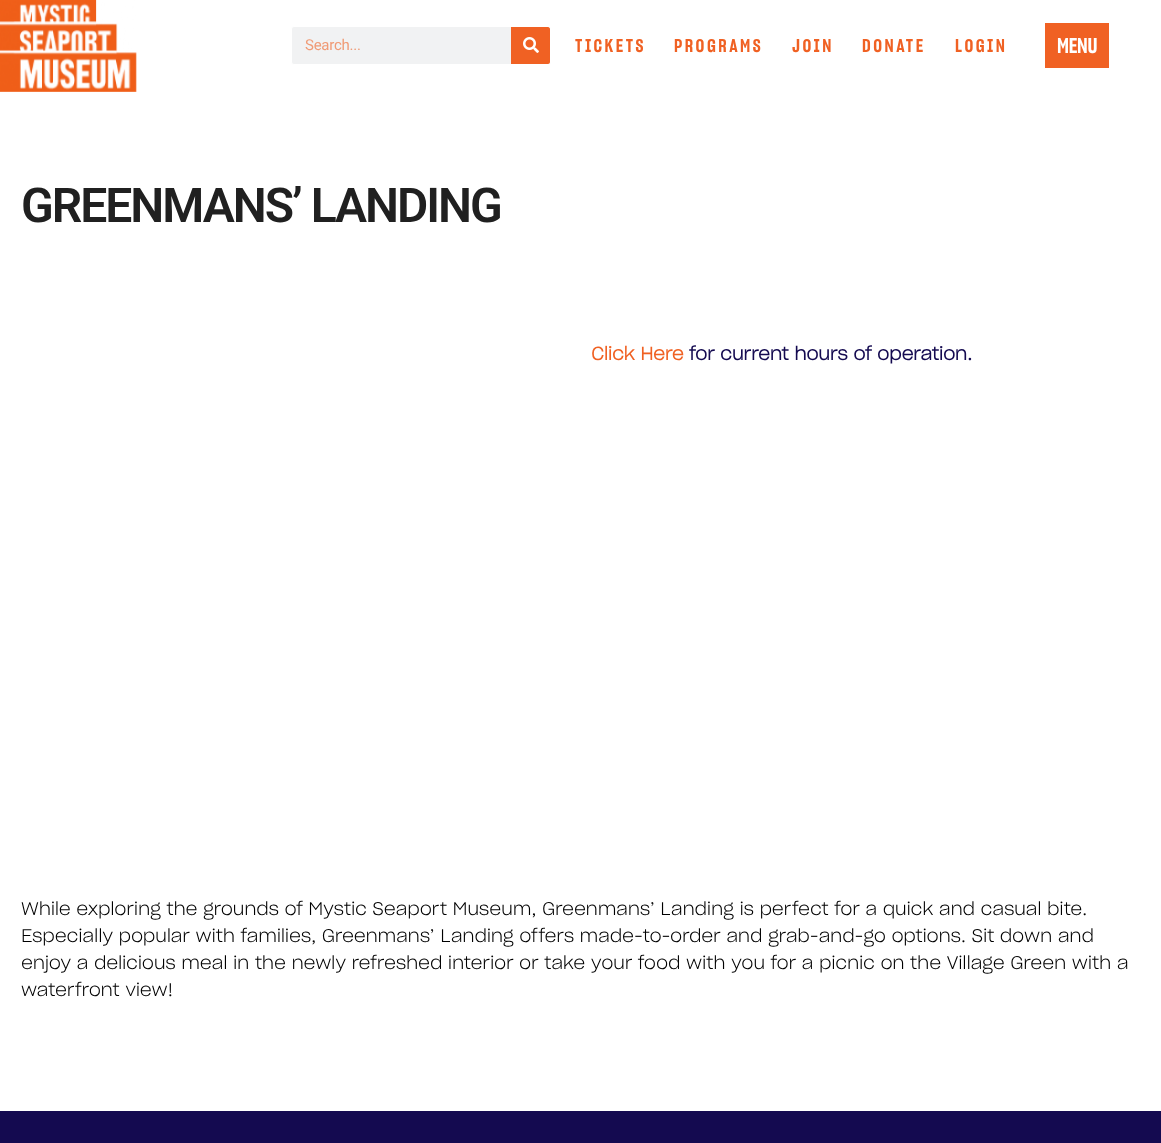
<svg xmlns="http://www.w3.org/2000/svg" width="1161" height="1143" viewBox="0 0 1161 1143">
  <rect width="100%" height="100%" fill="#fff"/>
  <image x="0" y="0" width="137" height="92" href="img/1.png"/>
  <rect x="291.5" y="26.5" width="259" height="38" rx="2.5" fill="#f1f2f3" stroke="#fff"/>
  <path d="M511 27H548C549 27 550 28 550 29V62C550 63 549 64 548 64H511Z" fill="#f06123"/>
  <image x="523" y="37" width="16" height="16" href="img/2.png"/>
  <path d="M1045 23h64v45H1045z" fill="#f06123"/>
  <path d="M0 1111h1161v32H0z" fill="#140a50"/>
  <text x="305" y="50" font-family="Roboto" font-size="15" letter-spacing="-0.25" fill="#f09b76">Search...</text>
  <g font-family="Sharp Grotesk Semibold" font-size="18" font-weight="bold" letter-spacing="2.5" fill="#f06123">
    <text x="575" y="52">TICKETS</text>
    <text x="674" y="52">PROGRAMS</text>
    <text x="792" y="52">JOIN</text>
    <text x="862" y="52">DONATE</text>
    <text x="955" y="52">LOGIN</text>
  </g>
  <text x="1057" y="53" font-family="Sharp Grotesk Semibold" font-size="21" font-weight="bold" letter-spacing="-0.27" fill="#fff">MENU</text>
  <text x="21" y="222" font-family="Roboto" font-size="48" font-weight="600" letter-spacing="-2" fill="#202020">GREENMANS’ LANDING</text>
  <text x="591" y="360" font-family="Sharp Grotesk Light" font-size="18" font-weight="bold" letter-spacing="-0.27" fill="#f06123">Click Here</text>
  <text x="689" y="360" font-family="Sharp Grotesk Light" font-size="18" font-weight="bold" letter-spacing="-0.27" fill="#140a50">for current hours of operation.</text>
  <g font-family="Sharp Grotesk Light" font-size="18" font-weight="300" letter-spacing="-0.27" fill="#000">
    <text x="21" y="915">While exploring the grounds of Mystic Seaport Museum, Greenmans’ Landing is perfect for a quick and casual bite.</text>
    <text x="21" y="942">Especially popular with families, Greenmans’ Landing offers made-to-order and grab-and-go options. Sit down and</text>
    <text x="21" y="969">enjoy a delicious meal in the newly refreshed interior or take your food with you for a picnic on the Village Green with a</text>
    <text x="21" y="996">waterfront view!</text>
  </g>
</svg>
